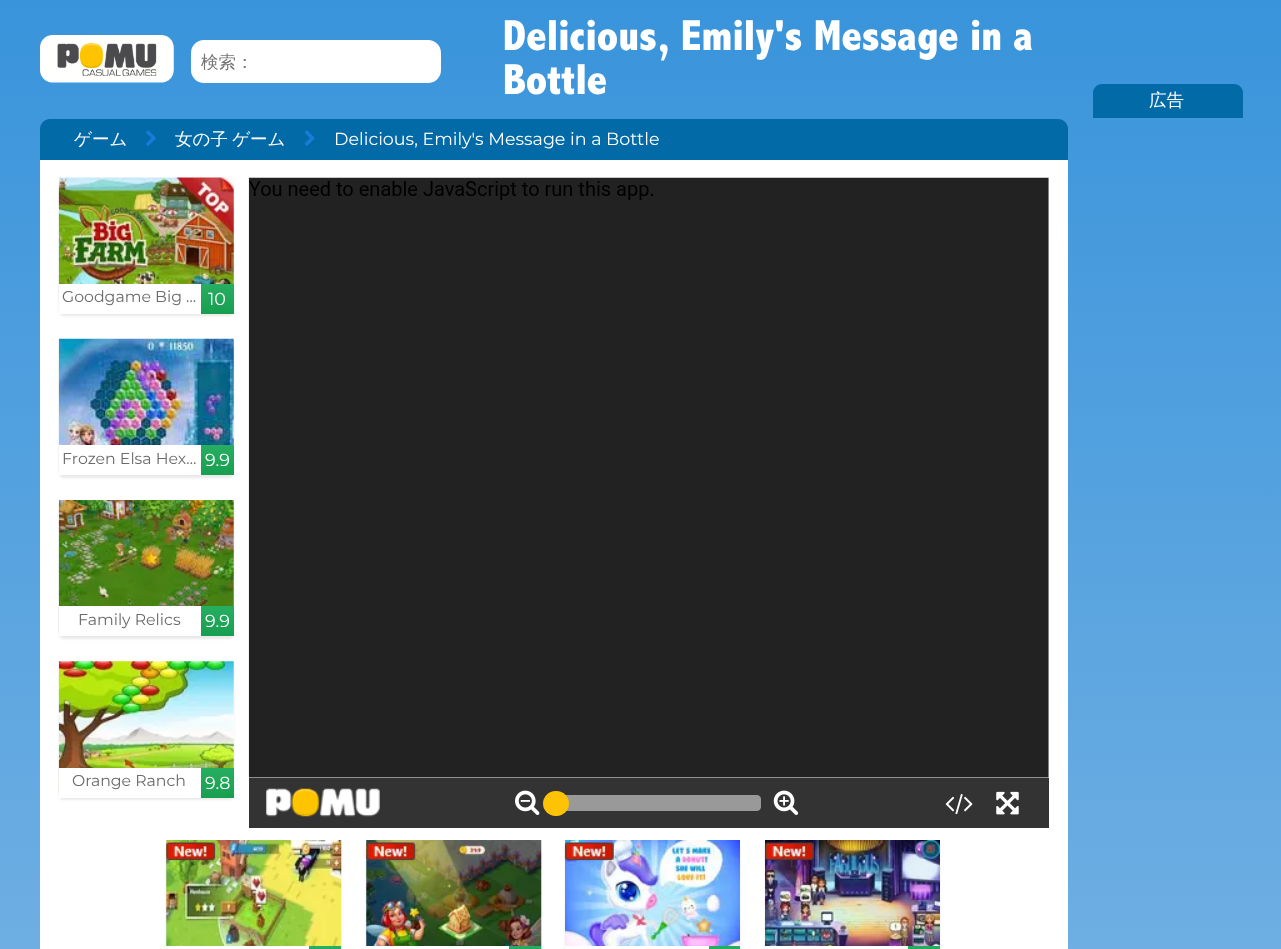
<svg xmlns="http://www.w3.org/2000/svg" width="1281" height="949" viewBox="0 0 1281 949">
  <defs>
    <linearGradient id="g1" gradientUnits="userSpaceOnUse" x1="641" y1="0" x2="641" y2="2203"><stop offset="0" stop-color="#3994db"/><stop offset="1" stop-color="#b4d1ed"/></linearGradient>
    <linearGradient id="g2" gradientUnits="userSpaceOnUse" x1="218" y1="284" x2="218" y2="314"><stop offset="0" stop-color="#27ae61"/><stop offset="1" stop-color="#189e50"/></linearGradient>
    <linearGradient id="g3" gradientUnits="userSpaceOnUse" x1="218" y1="445" x2="218" y2="475"><stop offset="0" stop-color="#27ae61"/><stop offset="1" stop-color="#189e50"/></linearGradient>
    <linearGradient id="g4" gradientUnits="userSpaceOnUse" x1="218" y1="606" x2="218" y2="636"><stop offset="0" stop-color="#27ae61"/><stop offset="1" stop-color="#189e50"/></linearGradient>
    <linearGradient id="g5" gradientUnits="userSpaceOnUse" x1="218" y1="768" x2="218" y2="798"><stop offset="0" stop-color="#27ae61"/><stop offset="1" stop-color="#189e50"/></linearGradient>
    <linearGradient id="g6" gradientUnits="userSpaceOnUse" x1="325" y1="946" x2="325" y2="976"><stop offset="0" stop-color="#27ae61"/><stop offset="1" stop-color="#189e50"/></linearGradient>
    <linearGradient id="g7" gradientUnits="userSpaceOnUse" x1="525" y1="946" x2="525" y2="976"><stop offset="0" stop-color="#27ae61"/><stop offset="1" stop-color="#189e50"/></linearGradient>
    <linearGradient id="g8" gradientUnits="userSpaceOnUse" x1="724" y1="946" x2="724" y2="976"><stop offset="0" stop-color="#27ae61"/><stop offset="1" stop-color="#189e50"/></linearGradient>
    <linearGradient id="g9" gradientUnits="userSpaceOnUse" x1="924" y1="946" x2="924" y2="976"><stop offset="0" stop-color="#27ae61"/><stop offset="1" stop-color="#189e50"/></linearGradient>
  </defs>
  <rect width="100%" height="100%" fill="#fff"/>
  <path d="M0 0h1281v949H0z" fill="url(#g1)"/>
  <image x="40" y="35" width="134" height="48" href="img/1.png"/>
  <rect x="191" y="40" width="250" height="43" rx="13" fill="#fff"/>
  <path d="M1102 84H1234C1239 84 1243 88 1243 93V118H1093V93C1093 88 1097 84 1102 84Z" fill="#026aa7"/>
  <path d="M50 119H1058C1063.5 119 1068 123.5 1068 129V160H40V129C40 123.5 44.5 119 50 119Z" fill="#026aa7"/>
  <image x="146" y="130" width="10" height="16" href="img/2.png"/>
  <image x="304" y="130" width="11" height="16" href="img/3.png"/>
  <path d="M40 160h1028v789H40z" fill="#fff"/>
  <rect x="59" y="180" width="175" height="136" rx="5" fill="#e9e9e9" filter="blur(1px)"/>
  <image x="58" y="177" width="176" height="132" href="img/4.png"/>
  <path d="M59 284h142v30H59z" fill="#fff"/>
  <path d="M201 284h33v30H201z" fill="url(#g2)"/>
  <rect x="59" y="341" width="175" height="137" rx="5" fill="#e9e9e9" filter="blur(1px)"/>
  <image x="58" y="338" width="176" height="132" href="img/5.png"/>
  <path d="M59 445h142v30H59z" fill="#fff"/>
  <path d="M201 445h33v30H201z" fill="url(#g3)"/>
  <rect x="59" y="503" width="175" height="136" rx="5" fill="#e9e9e9" filter="blur(1px)"/>
  <image x="58" y="500" width="176" height="131" href="img/6.png"/>
  <path d="M59 606h142v30H59z" fill="#fff"/>
  <path d="M201 606h33v30H201z" fill="url(#g4)"/>
  <rect x="59" y="664" width="175" height="136" rx="5" fill="#e9e9e9" filter="blur(1px)"/>
  <path d="M59 663h175v105H59z" fill="#fff"/>
  <image x="58" y="661" width="176" height="132" href="img/7.png"/>
  <path d="M59 768h142v30H59z" fill="#fff"/>
  <path d="M201 768h33v30H201z" fill="url(#g5)"/>
  <image x="248" y="177" width="801" height="601" href="img/8.png"/>
  <path d="M249 778h800v50H249z" fill="#333"/>
  <image x="266" y="788" width="114" height="29" href="img/9.png"/>
  <image x="515" y="790" width="25" height="25" href="img/10.png"/>
  <rect x="553.5" y="795.5" width="207" height="15" rx="3.5" fill="#999" stroke="#999"/>
  <rect x="543" y="791" width="26" height="25" rx="12.5" fill="#fec304"/>
  <image x="773" y="790" width="26" height="25" href="img/11.png"/>
  <image x="945" y="794" width="28" height="21" href="img/12.png"/>
  <image x="996" y="791" width="23" height="24" href="img/13.png"/>
  <rect x="166" y="843" width="175" height="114" rx="5" fill="#e9e9e9" filter="blur(1px)"/>
  <image x="166" y="840" width="176" height="109" href="img/14.png"/>
  <image x="166" y="842" width="50" height="19" href="img/15.png"/>
  <path d="M166 946h143v3H166z" fill="#fff"/>
  <path d="M309 946h32v3H309z" fill="url(#g6)"/>
  <rect x="366" y="843" width="175" height="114" rx="5" fill="#e9e9e9" filter="blur(1px)"/>
  <image x="366" y="840" width="176" height="109" href="img/16.png"/>
  <image x="366" y="842" width="50" height="19" href="img/17.png"/>
  <path d="M366 946h143v3H366z" fill="#fff"/>
  <path d="M509 946h32v3H509z" fill="url(#g7)"/>
  <rect x="565" y="843" width="175" height="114" rx="5" fill="#e9e9e9" filter="blur(1px)"/>
  <image x="565" y="840" width="175" height="106" href="img/18.png"/>
  <image x="564" y="842" width="50" height="19" href="img/19.png"/>
  <path d="M565 946h144v3H565z" fill="#fff"/>
  <path d="M709 946h31v3H709z" fill="url(#g8)"/>
  <rect x="765" y="843" width="175" height="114" rx="5" fill="#e9e9e9" filter="blur(1px)"/>
  <image x="765" y="840" width="175" height="106" href="img/20.png"/>
  <image x="764" y="842" width="50" height="19" href="img/21.png"/>
  <path d="M765 946h143v3H765z" fill="#fff"/>
  <path d="M908 946h32v3H908z" fill="url(#g9)"/>
  <text x="201" y="68" font-family="WenQuanYi Zen Hei" font-size="17.5" font-weight="500" fill="#757575">検索：</text>
  <g font-family="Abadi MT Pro" font-size="43.75" font-weight="800" fill="#fff">
    <text x="503" y="50">Delicious, Emily's Message in a</text>
    <text x="503" y="94">Bottle</text>
  </g>
  <g font-family="WenQuanYi Zen Hei" font-size="17.5" font-weight="500" fill="#fff">
    <text x="1149" y="106">広告</text>
    <text x="74" y="145">ゲーム</text>
    <text x="175" y="145" word-spacing="-1">女の子 ゲーム</text>
  </g>
  <text x="334" y="145" font-family="Montserrat" font-size="17.5" fill="#fff">Delicious, Emily's Message in a Bottle</text>
  <text x="62" y="302" font-family="Montserrat" font-size="15.75" fill="#6b6b6b">Goodgame Big …</text>
  <text x="208" y="305" font-family="Montserrat" font-size="17.5" fill="#fff">10</text>
  <text x="62" y="464" font-family="Montserrat" font-size="15.75" fill="#6b6b6b">Frozen Elsa Hex…</text>
  <text x="205" y="466" font-family="Montserrat" font-size="17.5" fill="#fff">9.9</text>
  <text x="78" y="625" font-family="Montserrat" font-size="15.75" fill="#6b6b6b">Family Relics</text>
  <text x="205" y="627" font-family="Montserrat" font-size="17.5" fill="#fff">9.9</text>
  <text x="72" y="786" font-family="Montserrat" font-size="15.75" fill="#6b6b6b">Orange Ranch</text>
  <text x="205" y="789" font-family="Montserrat" font-size="17.5" fill="#fff">9.8</text>
</svg>
